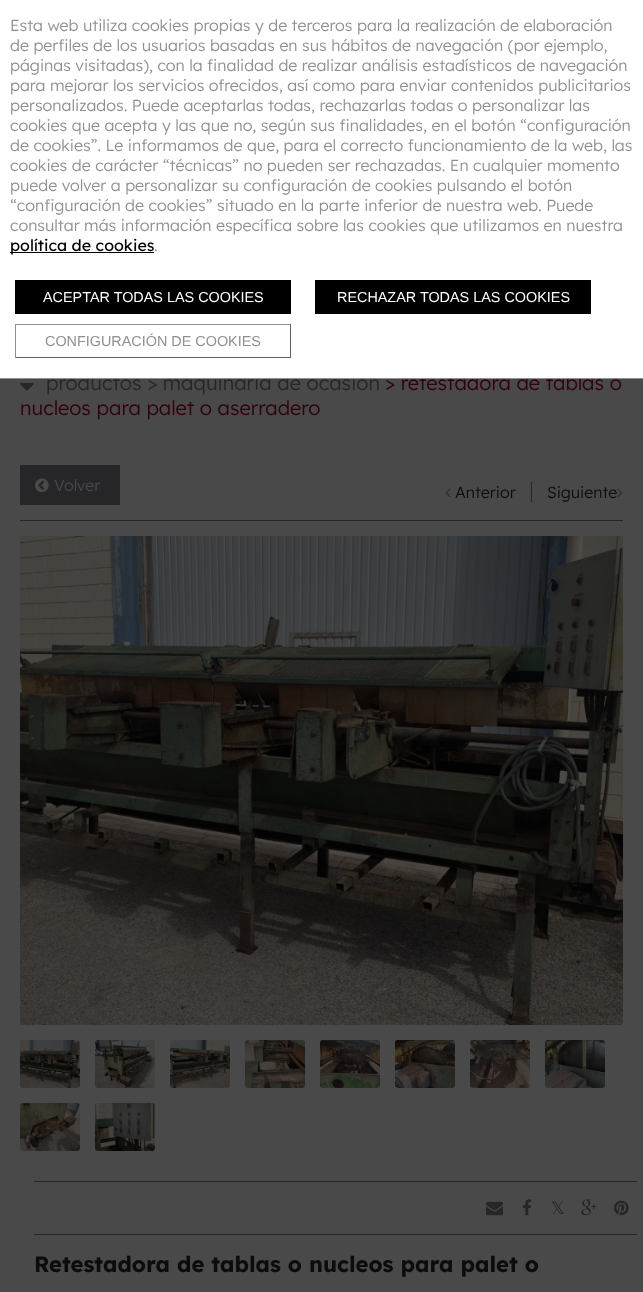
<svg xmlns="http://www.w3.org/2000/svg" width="643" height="1292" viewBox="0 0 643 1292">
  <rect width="100%" height="100%" fill="#494949"/>
  <image x="20" y="383" width="14" height="8" href="img/1.png"/>
  <path d="M20 520h603v1H20z" fill="#262628"/>
  <path d="M20 465h100v40H20z" fill="#262628"/>
  <image x="35" y="478" width="14" height="15" href="img/2.png"/>
  <path d="M531 482h1v20H531z" fill="#262628"/>
  <image x="445" y="488" width="6" height="10" href="img/3.png"/>
  <image x="617" y="488" width="6" height="10" href="img/4.png"/>
  <image x="20" y="536" width="603" height="489" href="img/5.png"/>
  <image x="20" y="1040" width="60" height="48" href="img/6.png"/>
  <image x="95" y="1040" width="60" height="48" href="img/7.png"/>
  <image x="170" y="1040" width="60" height="48" href="img/8.png"/>
  <image x="245" y="1040" width="60" height="48" href="img/9.png"/>
  <image x="320" y="1040" width="60" height="48" href="img/10.png"/>
  <image x="395" y="1040" width="60" height="48" href="img/11.png"/>
  <image x="470" y="1040" width="60" height="48" href="img/12.png"/>
  <image x="545" y="1040" width="60" height="48" href="img/13.png"/>
  <image x="20" y="1103" width="60" height="48" href="img/14.png"/>
  <image x="95" y="1103" width="60" height="48" href="img/15.png"/>
  <path d="M34 1181h603v1H34z" fill="#262628"/>
  <path d="M34 1234h603v1H34z" fill="#262628"/>
  <image x="486" y="1201" width="17" height="15" href="img/16.png"/>
  <image x="522" y="1199" width="10" height="17" href="img/17.png"/>
  <image x="581" y="1199" width="16" height="17" href="img/18.png"/>
  <image x="614" y="1200" width="15" height="16" href="img/19.png"/>
  <text x="46" y="390" font-family="Lexend" font-size="20" font-weight="300" fill="#262628">productos &gt; maquinaria de ocasión</text>
  <text x="385" y="390" font-family="Lexend" font-size="20" font-weight="300" fill="#31000c">&gt; retestadora de tablas o</text>
  <path d="M0 0h643v378H0z" fill="#fff"/>
  <text x="45" y="346" font-family="Liberation Sans" font-size="14.4" fill="#909090">CONFIGURACIÓN DE COOKIES</text>
  <path d="M15 324h276v1H15z" fill="#909090"/>
  <path d="M290 324h1v34H290z" fill="#606060"/>
  <path d="M15 357h276v1H15z" fill="#606060"/>
  <path d="M15 324h1v34H15z" fill="#909090"/>
  <path d="M315 280h276v34H315z" fill="#000"/>
  <text x="337" y="302" font-family="Liberation Sans" font-size="14.4" fill="#fff">RECHAZAR TODAS LAS COOKIES</text>
  <path d="M15 280h276v34H15z" fill="#000"/>
  <text x="43" y="302" font-family="Liberation Sans" font-size="14.4" fill="#fff">ACEPTAR TODAS LAS COOKIES</text>
  <text x="154" y="251" font-family="Lexend" font-size="16" font-weight="300" fill="#909090">.</text>
  <path d="M10 252h144v1H10z" fill="#000"/>
  <text x="10" y="251" font-family="Lexend" font-size="16" fill="#000">política de cookies</text>
  <g font-family="Lexend" font-size="16" font-weight="300" fill="#909090">
    <text x="10" y="231">consultar más información específica sobre las cookies que utilizamos en nuestra</text>
    <text x="10" y="211">“configuración de cookies” situado en la parte inferior de nuestra web. Puede</text>
    <text x="10" y="191">puede volver a personalizar su configuración de cookies pulsando el botón</text>
    <text x="10" y="171">cookies de carácter “técnicas” no pueden ser rechazadas. En cualquier momento</text>
    <text x="10" y="151">de cookies”. Le informamos de que, para el correcto funcionamiento de la web, las</text>
    <text x="10" y="131">cookies que acepta y las que no, según sus finalidades, en el botón “configuración</text>
    <text x="10" y="111">personalizados. Puede aceptarlas todas, rechazarlas todas o personalizar las</text>
    <text x="10" y="91">para mejorar los servicios ofrecidos, así como para enviar contenidos publicitarios</text>
    <text x="10" y="71">páginas visitadas), con la finalidad de realizar análisis estadísticos de navegación</text>
    <text x="10" y="51">de perfiles de los usuarios basadas en sus hábitos de navegación (por ejemplo,</text>
    <text x="10" y="31">Esta web utiliza cookies propias y de terceros para la realización de elaboración</text>
  </g>
  <path d="M0 378h643v1H0z" fill="#909090"/>
  <text x="20" y="415" font-family="Lexend" font-size="20" font-weight="300" fill="#31000c">nucleos para palet o aserradero</text>
  <text x="54" y="491" font-family="Lexend" font-size="16" font-weight="300" fill="#494949">Volver</text>
  <g font-family="Lexend" font-size="16" font-weight="300" fill="#0c0c0c">
    <text x="455" y="498">Anterior</text>
    <text x="547" y="498">Siguiente</text>
  </g>
  <text x="551" y="1214" font-family="DejaVu Sans" font-size="17" fill="#262628">𝕏</text>
  <text x="34" y="1272" font-family="Lexend" font-size="22" font-weight="bold" fill="#0c0c0c">Retestadora de tablas o nucleos para palet o</text>
</svg>
